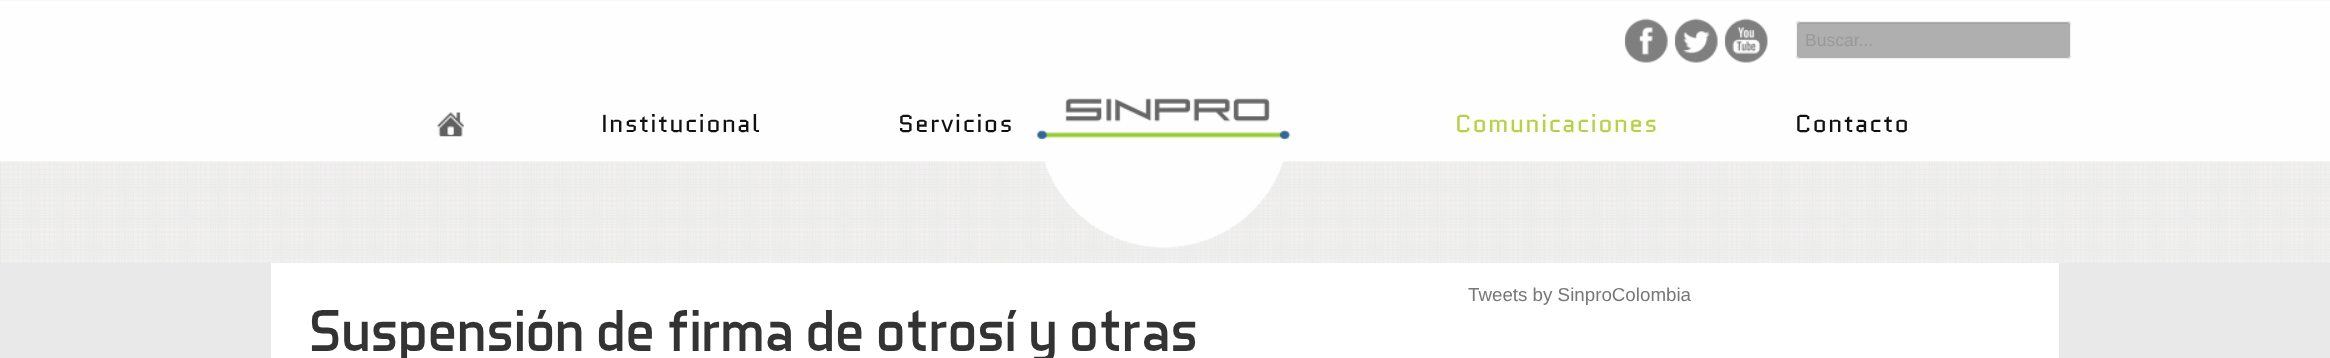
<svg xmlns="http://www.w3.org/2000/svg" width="2330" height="358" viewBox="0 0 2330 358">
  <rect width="100%" height="100%" fill="#e9e9e9"/>
  <image x="1" y="1" width="2329" height="262" href="img/1.png"/>
  <image x="0" y="0" width="2330" height="248" href="img/2.png"/>
  <image x="1624" y="18" width="44" height="45" href="img/3.png"/>
  <image x="1674" y="18" width="44" height="45" href="img/4.png"/>
  <image x="1724" y="18" width="44" height="45" href="img/5.png"/>
  <rect x="1796" y="21" width="275" height="38" rx="4" fill="#afafb0"/>
  <path d="M1800 24H2068C2069 24 2070 25 2070 26C2070 24 2069 23 2068 23H1800C1799 23 1798 24 1798 26C1798 25 1799 24 1800 24Z" fill="#a2a2a3"/>
  <rect x="1796.5" y="21.5" width="274" height="37" rx="3.5" fill="none" stroke="#f1f1f1"/>
  <image x="437" y="112" width="27" height="25" href="img/6.png"/>
  <path d="M271 263h1788v95H271z" fill="#fff"/>
  <text x="1805" y="46" font-family="Liberation Sans" font-size="17.5" fill="#999">Buscar...</text>
  <g font-family="Quantico" font-size="24.5" letter-spacing="1.25" fill="#111">
    <text x="601" y="132">Institucional</text>
    <text x="898" y="132">Servicios</text>
  </g>
  <text x="1455" y="132" font-family="Quantico" font-size="24.5" letter-spacing="1.25" fill="#b5d340">Comunicaciones</text>
  <text x="1795" y="132" font-family="Quantico" font-size="24.5" letter-spacing="1.25" fill="#111">Contacto</text>
  <text x="1468" y="301" font-family="Liberation Sans" font-size="18.75" fill="#777">Tweets by SinproColombia</text>
  <text x="309" y="351" font-family="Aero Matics" font-size="60" fill="#333">Suspensión de firma de otrosí y otras</text>
</svg>
